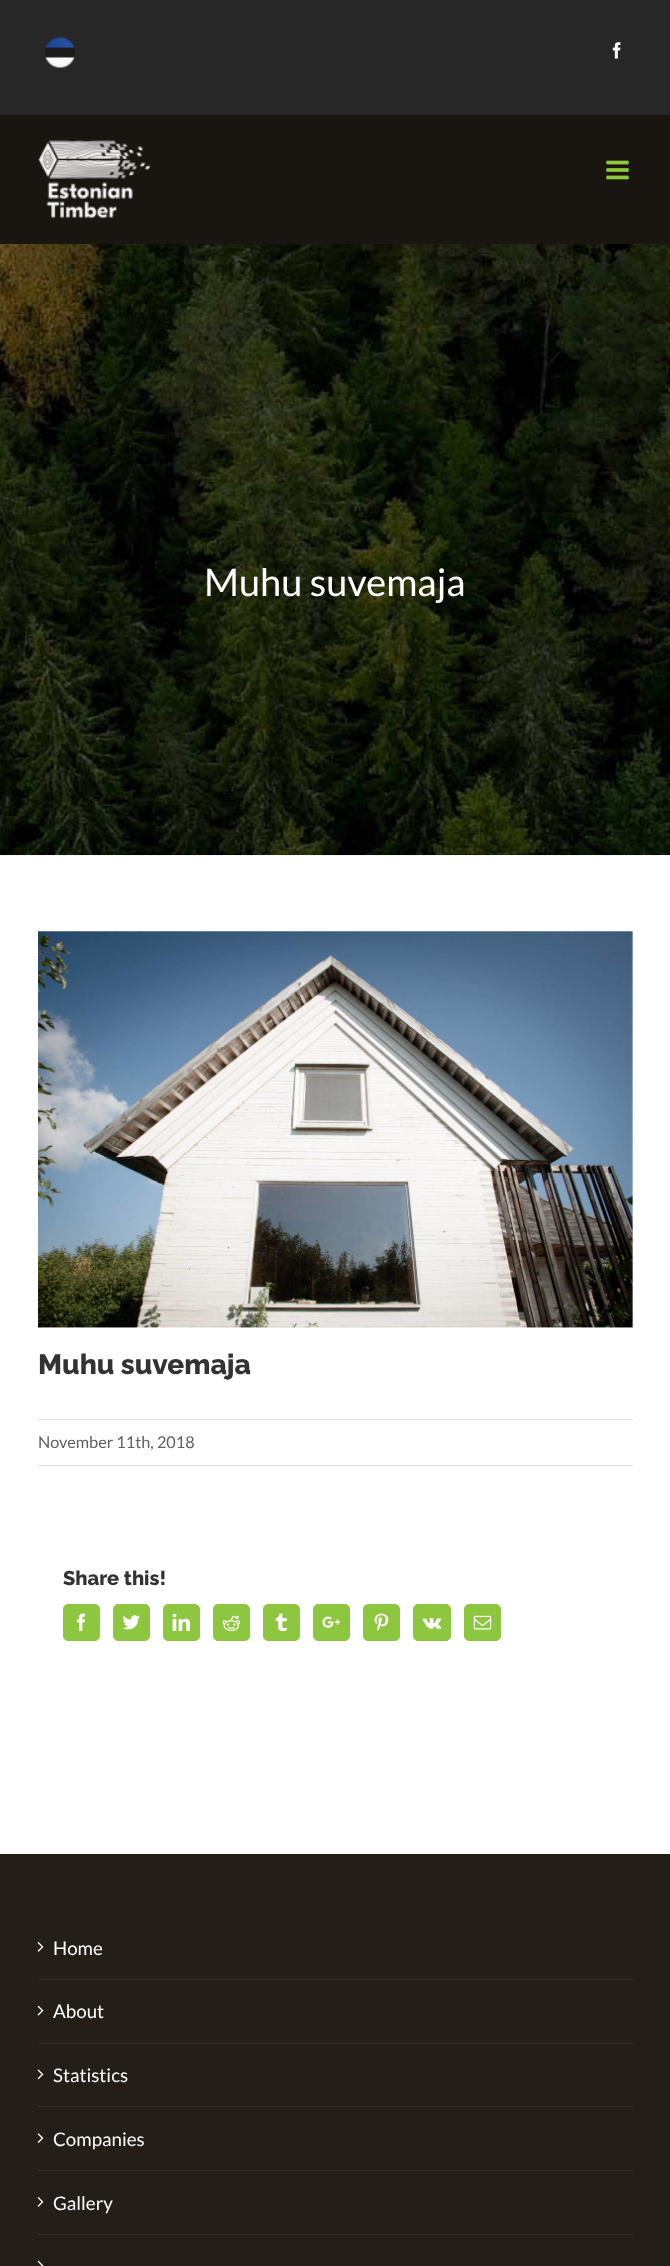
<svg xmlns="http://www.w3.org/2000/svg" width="670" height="2266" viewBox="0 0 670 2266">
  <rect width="100%" height="100%" fill="#fff"/>
  <image x="0" y="244" width="670" height="611" href="img/5.png"/>
  <path d="M3 15h665v239H3z" fill="#00000024" filter="blur(31px)"/>
  <path d="M0 0h670v115H0z" fill="#272727"/>
  <image x="45" y="37" width="30" height="31" href="img/1.png"/>
  <image x="612" y="42" width="9" height="17" href="img/2.png"/>
  <path d="M0 115h670v129H0z" fill="#191612"/>
  <image x="38" y="140" width="112" height="79" href="img/3.png"/>
  <image x="606" y="160" width="23" height="20" href="img/4.png"/>
  <path d="M0 855h670v1H0z" fill="#f5f5f5"/>
  <image x="38" y="931" width="595" height="397" href="img/6.png"/>
  <path d="M38 1419h595v1H38z" fill="#e0dede"/>
  <path d="M38 1465h595v1H38z" fill="#e0dede"/>
  <rect x="63.5" y="1604.5" width="36" height="36" rx="4.5" fill="#8dc63f" stroke="#8dc63f"/>
  <image x="76" y="1613" width="10" height="19" href="img/7.png"/>
  <rect x="113.5" y="1604.5" width="36" height="36" rx="4.5" fill="#8dc63f" stroke="#8dc63f"/>
  <image x="122" y="1615" width="18" height="15" href="img/8.png"/>
  <rect x="163.5" y="1604.5" width="36" height="36" rx="4.5" fill="#8dc63f" stroke="#8dc63f"/>
  <image x="172" y="1613" width="18" height="18" href="img/9.png"/>
  <rect x="213.5" y="1604.5" width="36" height="36" rx="4.5" fill="#8dc63f" stroke="#8dc63f"/>
  <image x="222" y="1615" width="18" height="17" href="img/10.png"/>
  <rect x="263.5" y="1604.5" width="36" height="36" rx="4.5" fill="#8dc63f" stroke="#8dc63f"/>
  <image x="275" y="1613" width="12" height="19" href="img/11.png"/>
  <rect x="313.5" y="1604.5" width="36" height="36" rx="4.5" fill="#8dc63f" stroke="#8dc63f"/>
  <image x="322" y="1616" width="18" height="12" href="img/12.png"/>
  <rect x="363.5" y="1604.5" width="36" height="36" rx="4.5" fill="#8dc63f" stroke="#8dc63f"/>
  <image x="374" y="1613" width="15" height="18" href="img/13.png"/>
  <rect x="413.5" y="1604.5" width="37" height="36" rx="4.5" fill="#8dc63f" stroke="#8dc63f"/>
  <image x="422" y="1618" width="20" height="11" href="img/14.png"/>
  <rect x="464.5" y="1604.5" width="36" height="36" rx="4.5" fill="#8dc63f" stroke="#8dc63f"/>
  <image x="473" y="1615" width="19" height="15" href="img/15.png"/>
  <path d="M0 1854h670v412H0z" fill="#231e18"/>
  <path d="M38 1979h595v1H38z" fill="#382f24"/>
  <image x="37" y="1942" width="7" height="10" href="img/16.png"/>
  <path d="M38 2043h595v1H38z" fill="#382f24"/>
  <image x="37" y="2005" width="7" height="11" href="img/17.png"/>
  <path d="M38 2106h595v1H38z" fill="#382f24"/>
  <image x="37" y="2069" width="7" height="11" href="img/18.png"/>
  <path d="M38 2170h595v1H38z" fill="#382f24"/>
  <image x="37" y="2133" width="7" height="10" href="img/19.png"/>
  <path d="M38 2234h595v1H38z" fill="#382f24"/>
  <image x="37" y="2197" width="7" height="10" href="img/16.png"/>
  <image x="37" y="2260" width="7" height="6" href="img/20.png"/>
  <text x="204" y="596" font-family="Lato" font-size="38" fill="#fff">Muhu suvemaja</text>
  <text x="38" y="1374" font-family="Raleway" font-size="28" font-weight="100" fill="#333">Muhu suvemaja</text>
  <text x="38" y="1448" font-family="Lato" font-size="16.25" fill="#5e5e5e">November 11th, 2018</text>
  <text x="63" y="1585" font-family="Raleway" font-size="20" font-weight="100" fill="#333">Share this!</text>
  <g font-family="Lato" font-size="18.75" fill="#fff">
    <text x="53" y="1955">Home</text>
    <text x="53" y="2018">About</text>
    <text x="53" y="2082">Statistics</text>
    <text x="53" y="2146">Companies</text>
    <text x="53" y="2210">Gallery</text>
  </g>
</svg>
